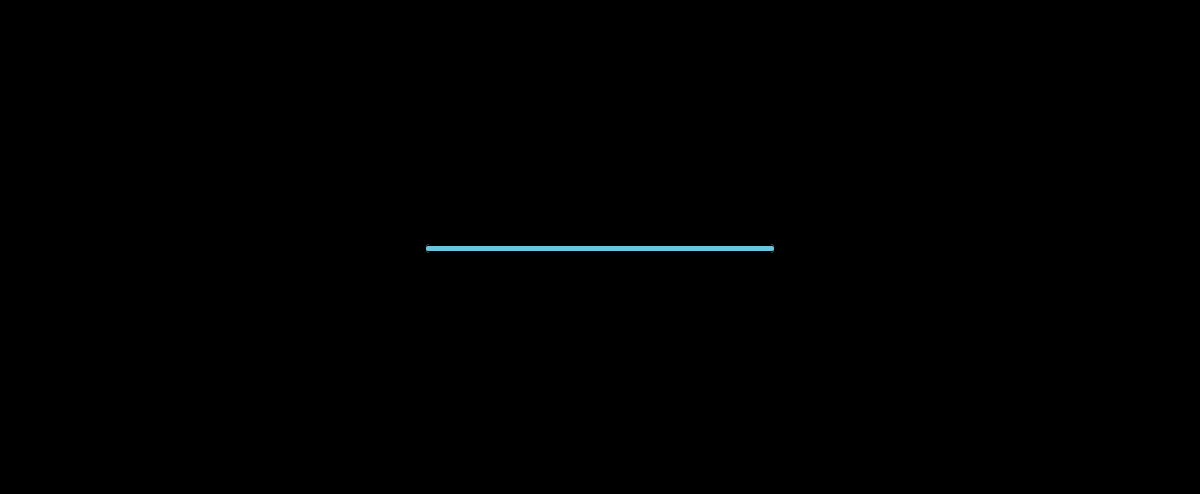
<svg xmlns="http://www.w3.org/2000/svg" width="1200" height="494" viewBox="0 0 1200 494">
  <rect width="100%" height="100%" fill="#000"/>
  <rect x="426" y="244" width="348" height="9" rx="4" fill="#6cc5df"/>
  <path d="M430 253H770C772 253 774 251 774 249C774 250 773 251 772 251H428C427 251 426 250 426 249C426 251 428 253 430 253ZM428 246H772C773 246 774 247 774 248C774 246 772 244 770 244H430C428 244 426 246 426 248C426 247 427 246 428 246Z" fill="#000" fill-rule="evenodd"/>
</svg>
